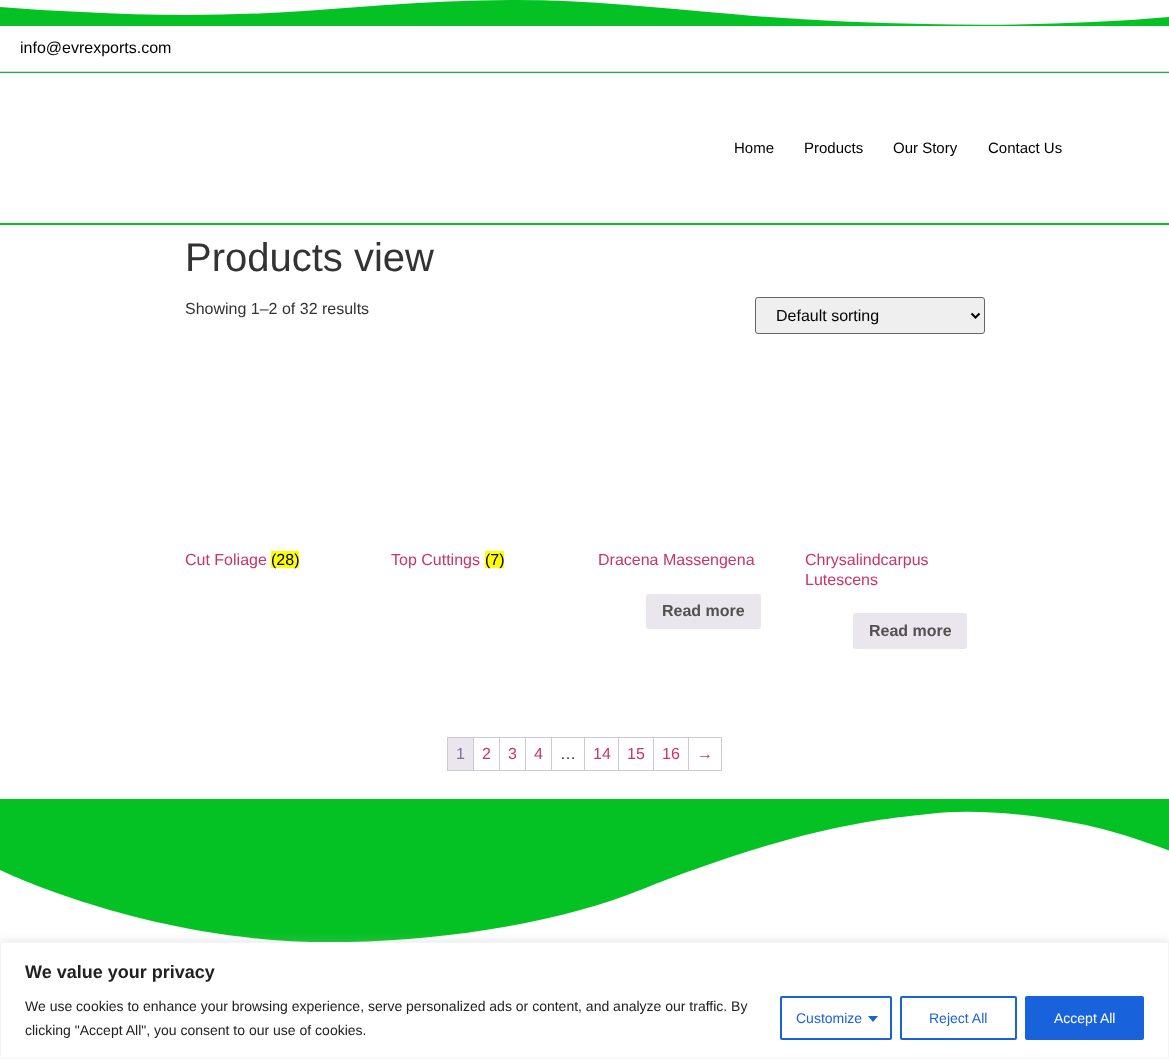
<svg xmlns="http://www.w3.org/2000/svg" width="1169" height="1059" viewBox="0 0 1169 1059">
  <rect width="100%" height="100%" fill="#fff"/>
  <path d="M925 24C861 23 796 20 732 14C660 8 588 0 515 0C472 0 429 2 386 5L304 11C230 16 156 16 82 12C55 11 27 9 0 7V26H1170V17C1089 24 1007 26 925 24Z" fill="#05c224"/>
  <path d="M0 71h1169v1H0z" fill="#d4d6e3"/>
  <path d="M0 72h1169v1H0z" fill="#05c224"/>
  <path d="M0 223h1169v2H0z" fill="#05c224"/>
  <rect x="755.5" y="297.5" width="229" height="36" rx="2.5" fill="#efefef" stroke="#666"/>
  <path d="M971.5 313.5L975.5 317.5L979.5 313.5" fill="none" stroke="#000" stroke-width="2"/>
  <path d="M271 551h28v17H271z" fill="#ff0"/>
  <path d="M485 551h19v17H485z" fill="#ff0"/>
  <rect x="646" y="594" width="115" height="35" rx="3" fill="#e9e6ed"/>
  <rect x="853" y="613" width="114" height="36" rx="3" fill="#e9e6ed"/>
  <path d="M447 737h275v1H447z" fill="#cfc8d8"/>
  <path d="M447 770h275v1H447z" fill="#cfc8d8"/>
  <path d="M447 737h1v34H447z" fill="#cfc8d8"/>
  <path d="M473 738h1v32H473z" fill="#cfc8d8"/>
  <path d="M448 738h25v32H448z" fill="#e9e6ed"/>
  <path d="M499 738h1v32H499z" fill="#cfc8d8"/>
  <path d="M525 738h1v32H525z" fill="#cfc8d8"/>
  <path d="M551 738h1v32H551z" fill="#cfc8d8"/>
  <path d="M584 738h1v32H584z" fill="#cfc8d8"/>
  <path d="M618 738h1v32H618z" fill="#cfc8d8"/>
  <path d="M653 738h1v32H653z" fill="#cfc8d8"/>
  <path d="M688 738h1v32H688z" fill="#cfc8d8"/>
  <path d="M721 738h1v32H721z" fill="#cfc8d8"/>
  <path d="M928 814C977 808 1041 815 1094 827C1146 838 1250 882 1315 911C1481 986 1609 1015 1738 1027C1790 1032 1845 1036 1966 1022C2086 1007 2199 961 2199 961V799H0V870C0 870 158 947 348 942C435 940 552 926 643 889C690 870 758 846 818 832C878 818 905 817 928 814Z" fill="#05c224"/>
  <path d="M0 941h1169v117H0z" fill="#acabab4d" filter="blur(5px)"/>
  <path d="M0.5 942.5h1168v116H0.5z" fill="#fff" stroke="#f4f4f4"/>
  <rect x="781" y="997" width="110" height="42" rx="1" fill="none" stroke="#1863dc" stroke-width="2"/>
  <path d="M868 1016H878L873 1022Z" fill="#1863dc"/>
  <rect x="901" y="997" width="115" height="42" rx="1" fill="none" stroke="#1863dc" stroke-width="2"/>
  <rect x="1026" y="997" width="117" height="42" rx="1" fill="#1863dc" stroke="#1863dc" stroke-width="2"/>
  <text x="20" y="53" font-family="Liberation Sans" font-size="16" fill="#000">info@evrexports.com</text>
  <g font-family="Liberation Sans" font-size="15" fill="#000">
    <text x="734" y="153">Home</text>
    <text x="804" y="153">Products</text>
    <text x="893" y="153">Our Story</text>
    <text x="988" y="153">Contact Us</text>
  </g>
  <text x="185" y="271" font-family="Liberation Sans" font-size="40" fill="#333">Products view</text>
  <text x="185" y="314" font-family="Liberation Sans" font-size="16" fill="#333">Showing 1–2 of 32 results</text>
  <text x="776" y="321" font-family="Liberation Sans" font-size="16" fill="#000">Default sorting</text>
  <text x="185" y="565" font-family="Liberation Sans" font-size="16" fill="#c36">Cut Foliage</text>
  <text x="271" y="565" font-family="Liberation Sans" font-size="16" fill="#000">(28)</text>
  <text x="391" y="565" font-family="Liberation Sans" font-size="16" fill="#c36">Top Cuttings</text>
  <text x="485" y="565" font-family="Liberation Sans" font-size="16" fill="#000">(7)</text>
  <text x="598" y="565" font-family="Liberation Sans" font-size="16" fill="#c36">Dracena Massengena</text>
  <text x="662" y="616" font-family="Liberation Sans" font-size="16" font-weight="bold" fill="#515151">Read more</text>
  <g font-family="Liberation Sans" font-size="16" fill="#c36">
    <text x="805" y="565">Chrysalindcarpus</text>
    <text x="805" y="585">Lutescens</text>
  </g>
  <text x="869" y="636" font-family="Liberation Sans" font-size="16" font-weight="bold" fill="#515151">Read more</text>
  <text x="456" y="759" font-family="Liberation Sans" font-size="16" fill="#816f98">1</text>
  <g font-family="Liberation Sans" font-size="16" fill="#c36">
    <text x="482" y="759">2</text>
    <text x="508" y="759">3</text>
    <text x="534" y="759">4</text>
  </g>
  <text x="560" y="759" font-family="Liberation Sans" font-size="16" fill="#333">…</text>
  <g font-family="Liberation Sans" font-size="16" fill="#c36">
    <text x="593" y="759">14</text>
    <text x="627" y="759">15</text>
    <text x="662" y="759">16</text>
    <text x="697" y="759">→</text>
  </g>
  <text x="25" y="978" font-family="Liberation Sans" font-size="18" font-weight="bold" fill="#212121">We value your privacy</text>
  <g font-family="Liberation Sans" font-size="14" fill="#212121">
    <text x="25" y="1011">We use cookies to enhance your browsing experience, serve personalized ads or content, and analyze our traffic. By</text>
    <text x="25" y="1035">clicking "Accept All", you consent to our use of cookies.</text>
  </g>
  <g font-family="Liberation Sans" font-size="14" fill="#1863dc">
    <text x="796" y="1023">Customize</text>
    <text x="929" y="1023">Reject All</text>
  </g>
  <text x="1054" y="1023" font-family="Liberation Sans" font-size="14" fill="#fff">Accept All</text>
</svg>
